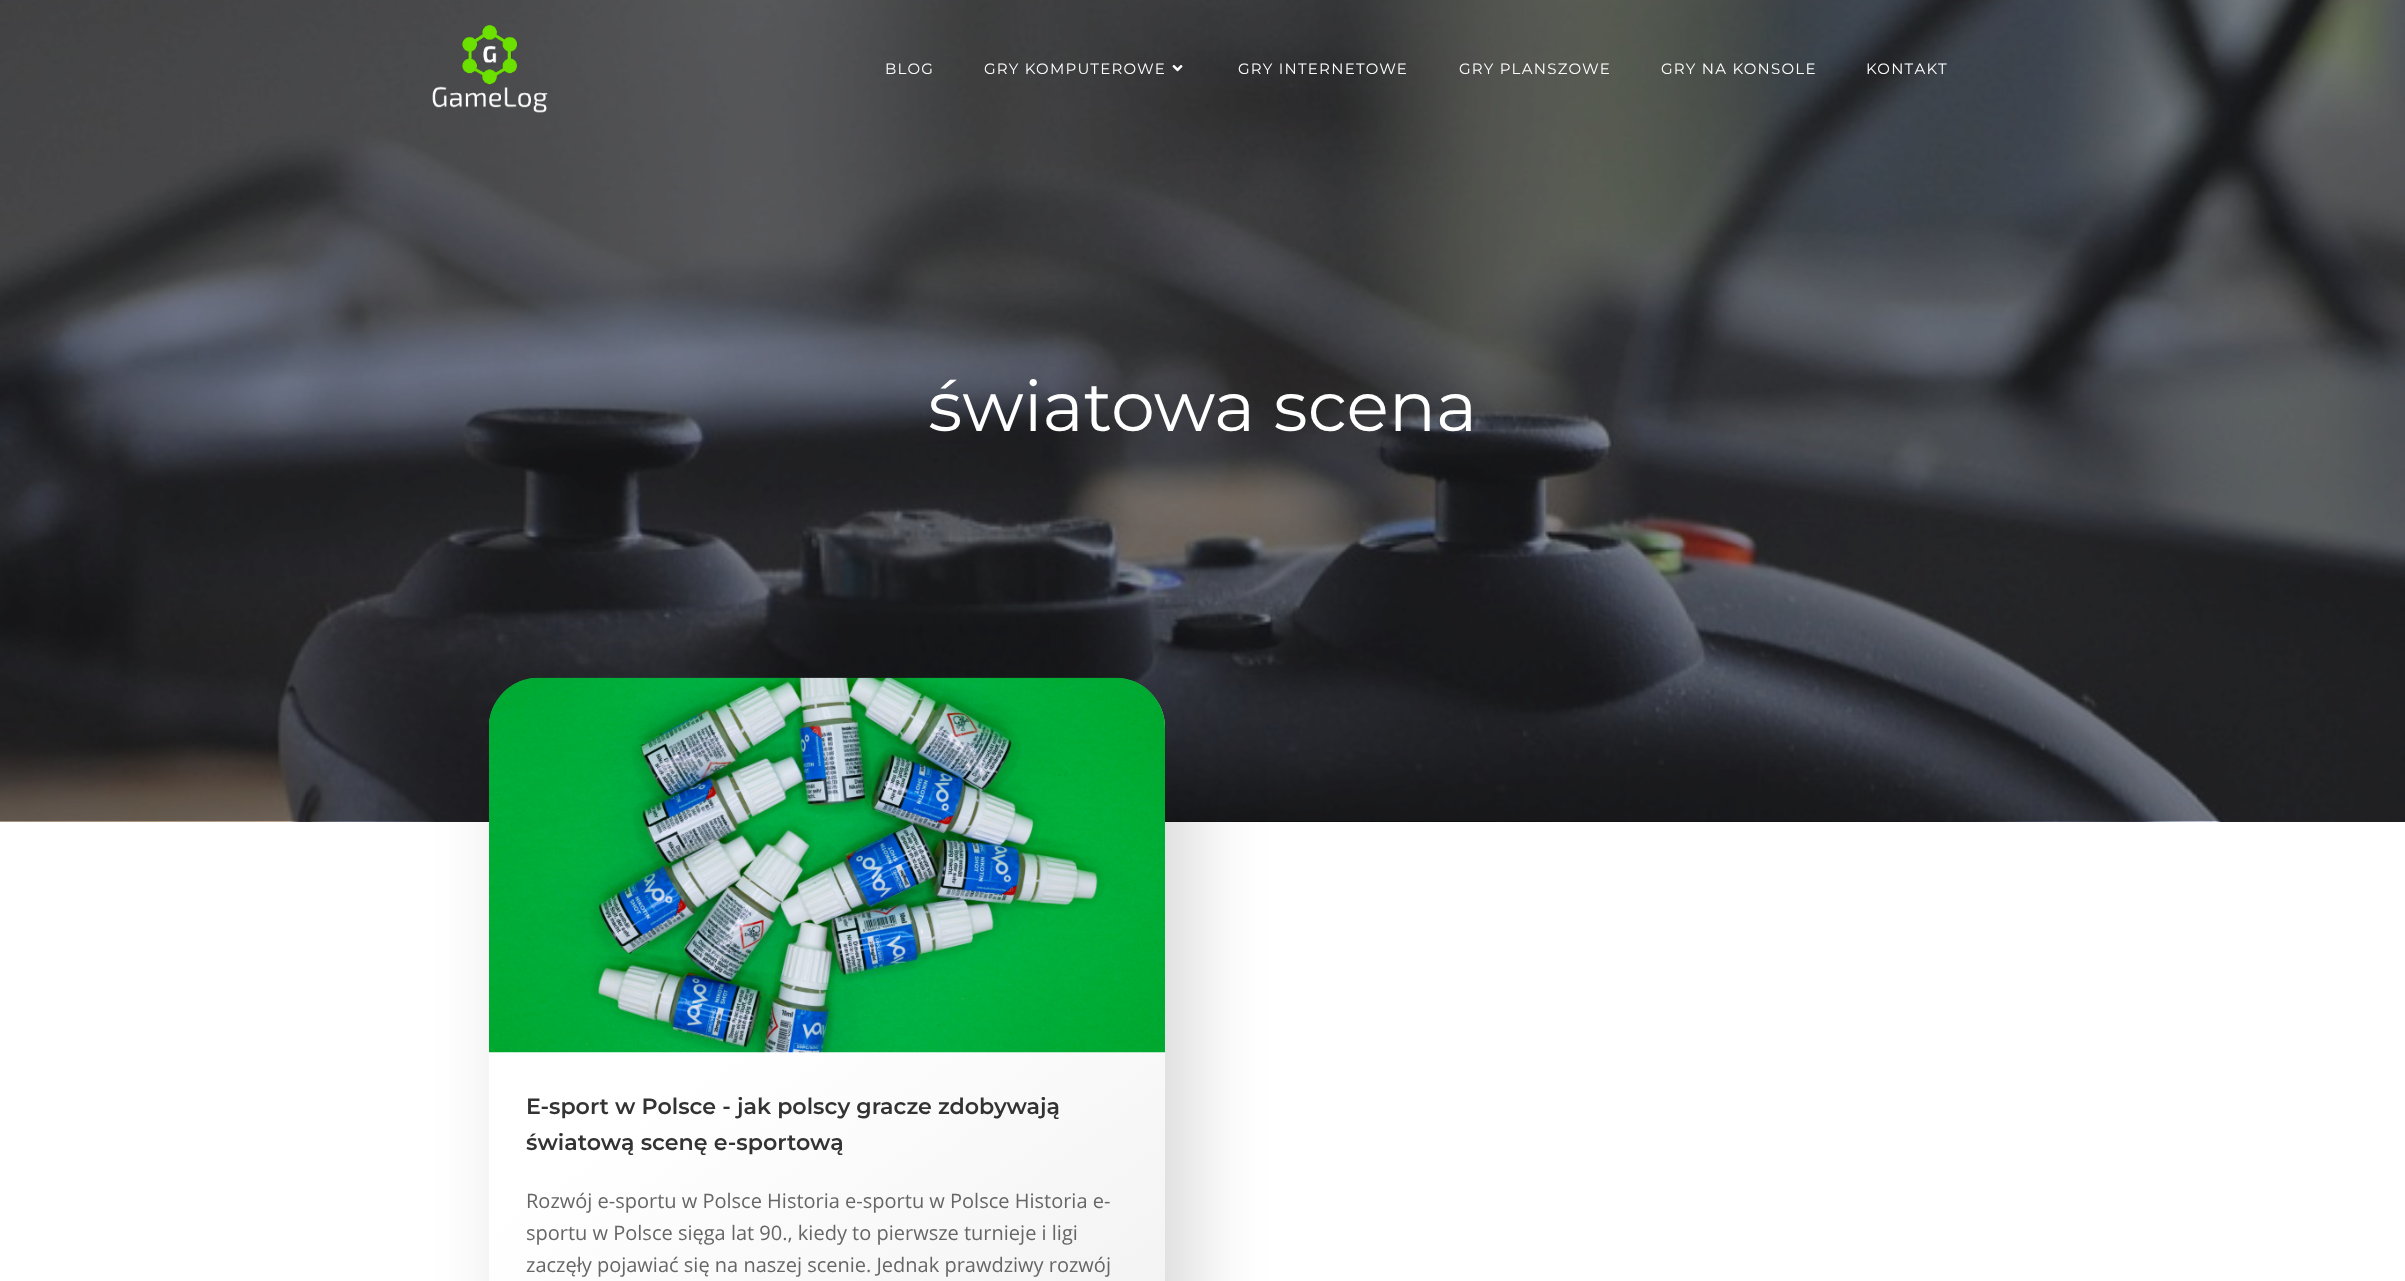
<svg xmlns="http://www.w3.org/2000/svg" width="2405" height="1281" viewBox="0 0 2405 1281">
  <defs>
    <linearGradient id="g1" gradientUnits="userSpaceOnUse" x1="524" y1="652" x2="1129" y2="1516"><stop offset="0.42" stop-color="#fff"/><stop offset="1" stop-color="#efefef"/></linearGradient>
  </defs>
  <rect width="100%" height="100%" fill="#fff"/>
  <image x="0" y="0" width="2405" height="822" href="img/3.png"/>
  <image x="432" y="25" width="116" height="88" href="img/1.png"/>
  <image x="1172" y="65" width="11" height="7" href="img/2.png"/>
  <rect x="511" y="700" width="682" height="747" rx="53" fill="#00000026" filter="blur(37.5px)"/>
  <rect x="489" y="678" width="676" height="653" rx="50" fill="url(#g1)"/>
  <image x="489" y="677" width="676" height="376" href="img/4.png"/>
  <g font-family="Montserrat" font-size="15" letter-spacing="1.25" fill="#fff">
    <text x="885" y="74">BLOG</text>
    <text x="984" y="74">GRY KOMPUTEROWE</text>
    <text x="1238" y="74">GRY INTERNETOWE</text>
    <text x="1459" y="74">GRY PLANSZOWE</text>
    <text x="1661" y="74">GRY NA KONSOLE</text>
    <text x="1866" y="74">KONTAKT</text>
  </g>
  <text x="928" y="431" font-family="Montserrat" font-size="70" fill="#fff">światowa scena</text>
  <g font-family="Montserrat" font-size="22.2" font-weight="600" fill="#333">
    <text x="526" y="1114">E-sport w Polsce - jak polscy gracze zdobywają</text>
    <text x="526" y="1150">światową scenę e-sportową</text>
  </g>
  <g font-family="Open Sans" font-size="20" fill="#666">
    <text x="526" y="1208">Rozwój e-sportu w Polsce Historia e-sportu w Polsce Historia e-</text>
    <text x="526" y="1240">sportu w Polsce sięga lat 90., kiedy to pierwsze turnieje i ligi</text>
    <text x="526" y="1272">zaczęły pojawiać się na naszej scenie. Jednak prawdziwy rozwój</text>
  </g>
</svg>
